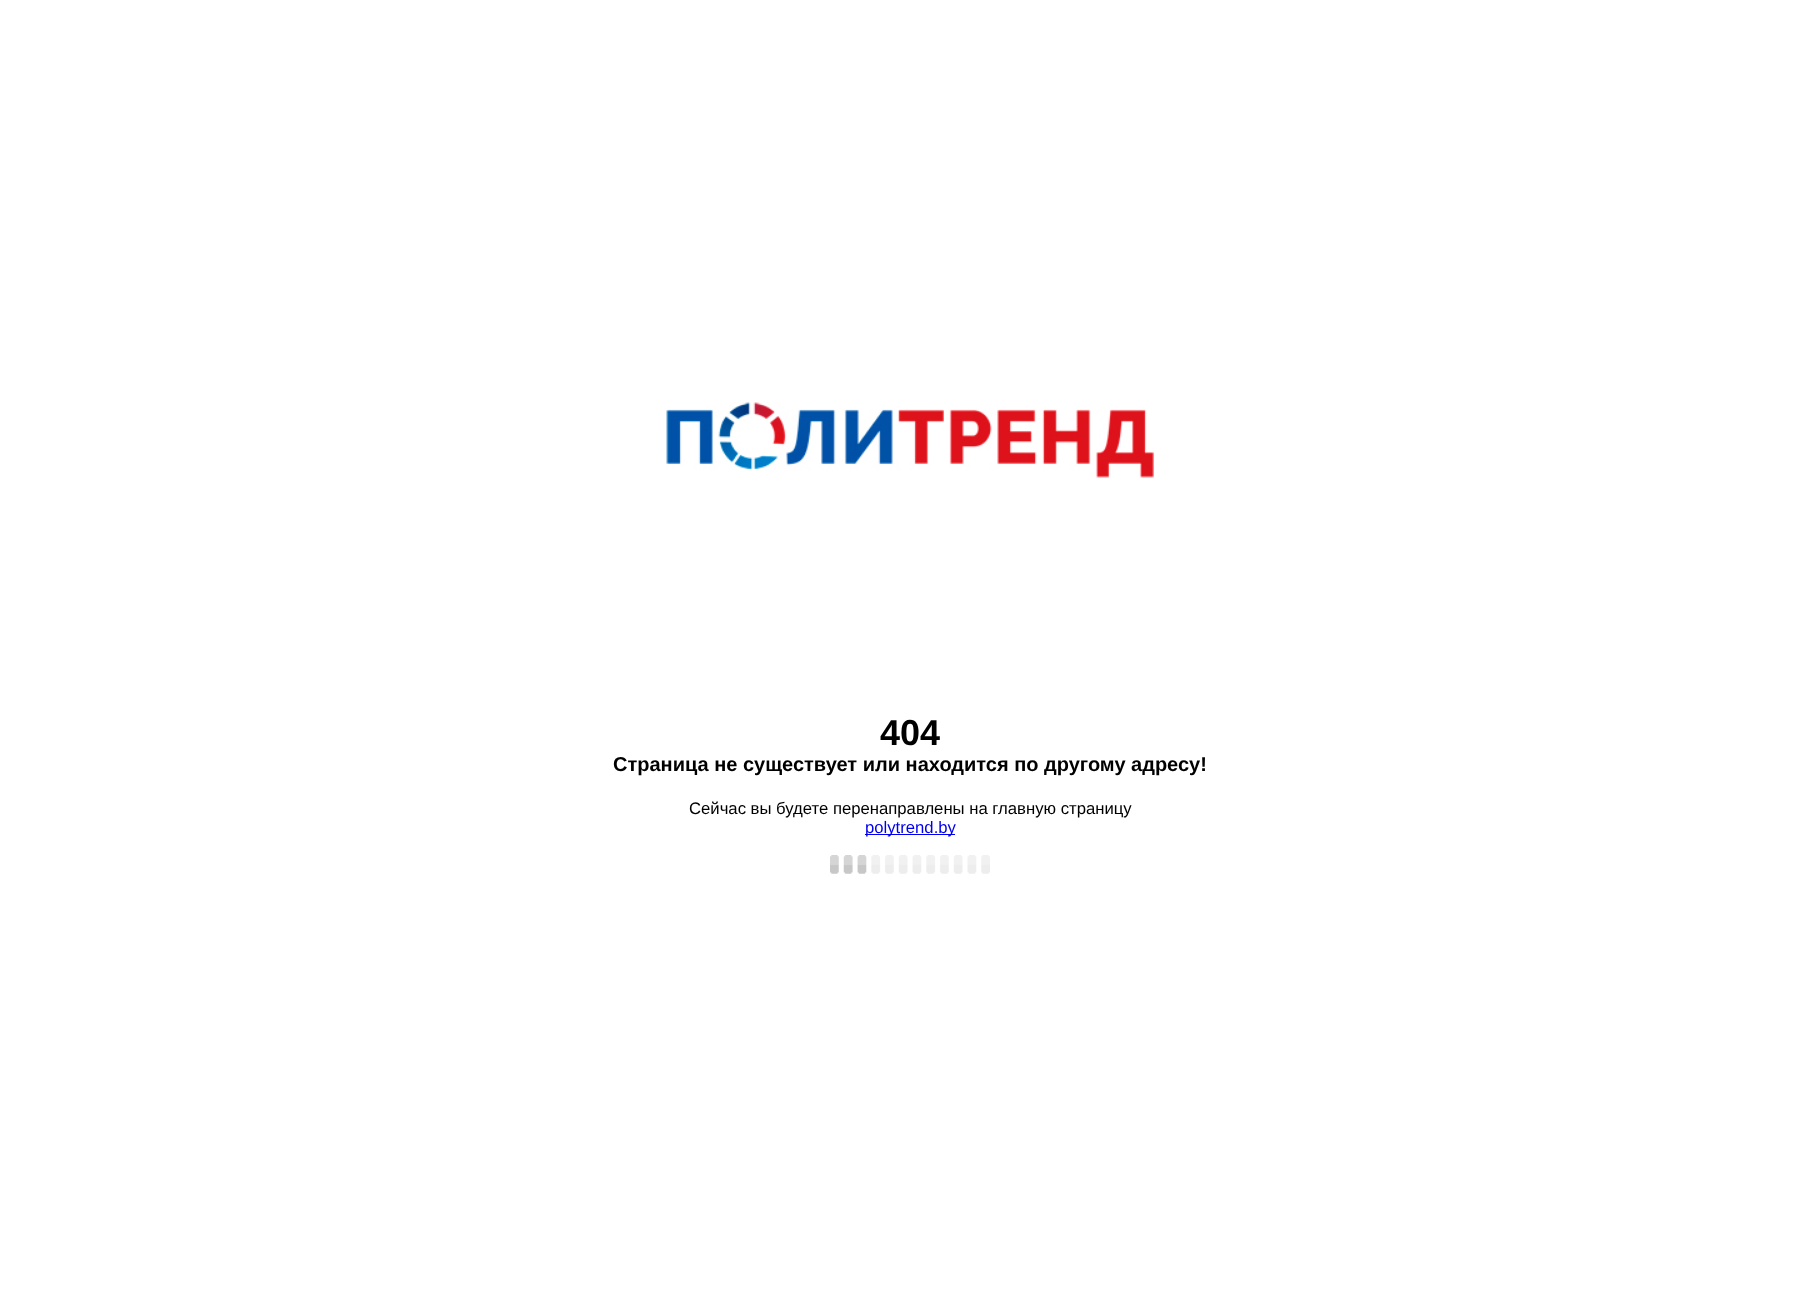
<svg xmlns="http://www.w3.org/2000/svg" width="1820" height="1301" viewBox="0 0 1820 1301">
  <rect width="100%" height="100%" fill="#fff"/>
  <image x="666" y="402" width="488" height="76" href="img/1.png"/>
  <path d="M865 834h90v1H865z" fill="#00e"/>
  <image x="830" y="855" width="160" height="19" href="img/2.png"/>
  <text x="880" y="745" font-family="Liberation Sans" font-size="36" font-weight="bold" fill="#000">404</text>
  <text x="613" y="771" font-family="Liberation Sans" font-size="20" font-weight="bold" fill="#000">Страница не существует или находится по другому адресу!</text>
  <text x="689" y="814" font-family="Liberation Sans" font-size="16.7" fill="#000">Сейчас вы будете перенаправлены на главную страницу</text>
  <text x="865" y="833" font-family="Liberation Sans" font-size="16.7" fill="#00e">polytrend.by</text>
</svg>
